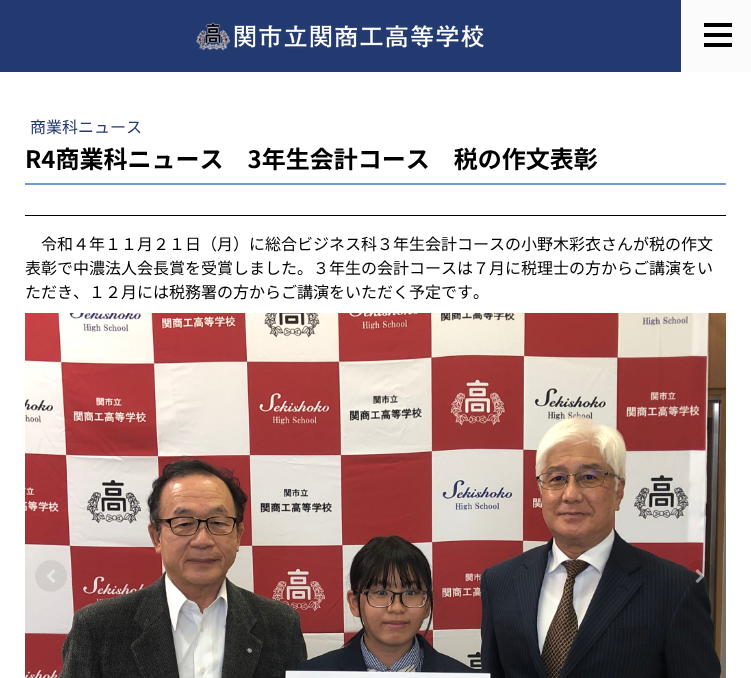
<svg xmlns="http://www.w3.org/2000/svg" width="751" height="678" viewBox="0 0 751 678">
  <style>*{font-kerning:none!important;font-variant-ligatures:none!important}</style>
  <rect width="100%" height="100%" fill="#fff"/>
  <path d="M681 0h70v72H681z" fill="#fbfbfb"/>
  <path d="M0 0h681v72H0z" fill="#223a70"/>
  <image x="196" y="22" width="288" height="29" href="img/1.png"/>
  <path d="M704 23h28v4H704z" fill="#000"/>
  <path d="M704 33h28v4H704z" fill="#000"/>
  <path d="M704 43h28v4H704z" fill="#000"/>
  <path d="M25 183h701v2H25z" fill="#6c99d0"/>
  <path d="M25 215h701v1H25z" fill="#000"/>
  <image x="25" y="313" width="701" height="365" href="img/2.png"/>
  <circle cx="51" cy="576" r="16" fill="#00000012"/>
  <image x="46" y="569" width="10" height="14" href="img/3.png"/>
  <circle cx="700" cy="576" r="16" fill="#00000012"/>
  <image x="695" y="569" width="10" height="14" href="img/4.png"/>
  <text x="30" y="133" font-family="Noto Sans JP" font-size="16" font-weight="100" fill="#223a70">商業科ニュース</text>
  <text x="25" y="168" font-family="Noto Sans JP" font-size="24" font-weight="bold" fill="#000">R4商業科ニュース　3年生会計コース　税の作文表彰</text>
  <g font-family="Noto Sans JP" font-size="16" font-weight="100" fill="#000">
    <text x="41" y="250">令和４年１１月２１日（月）に総合ビジネス科３年生会計コースの小野木彩衣さんが税の作文</text>
    <text x="25" y="274">表彰で中濃法人会長賞を受賞しました。３年生の会計コースは７月に税理士の方からご講演をい</text>
    <text x="25" y="298">ただき、１２月には税務署の方からご講演をいただく予定です。</text>
  </g>
</svg>
